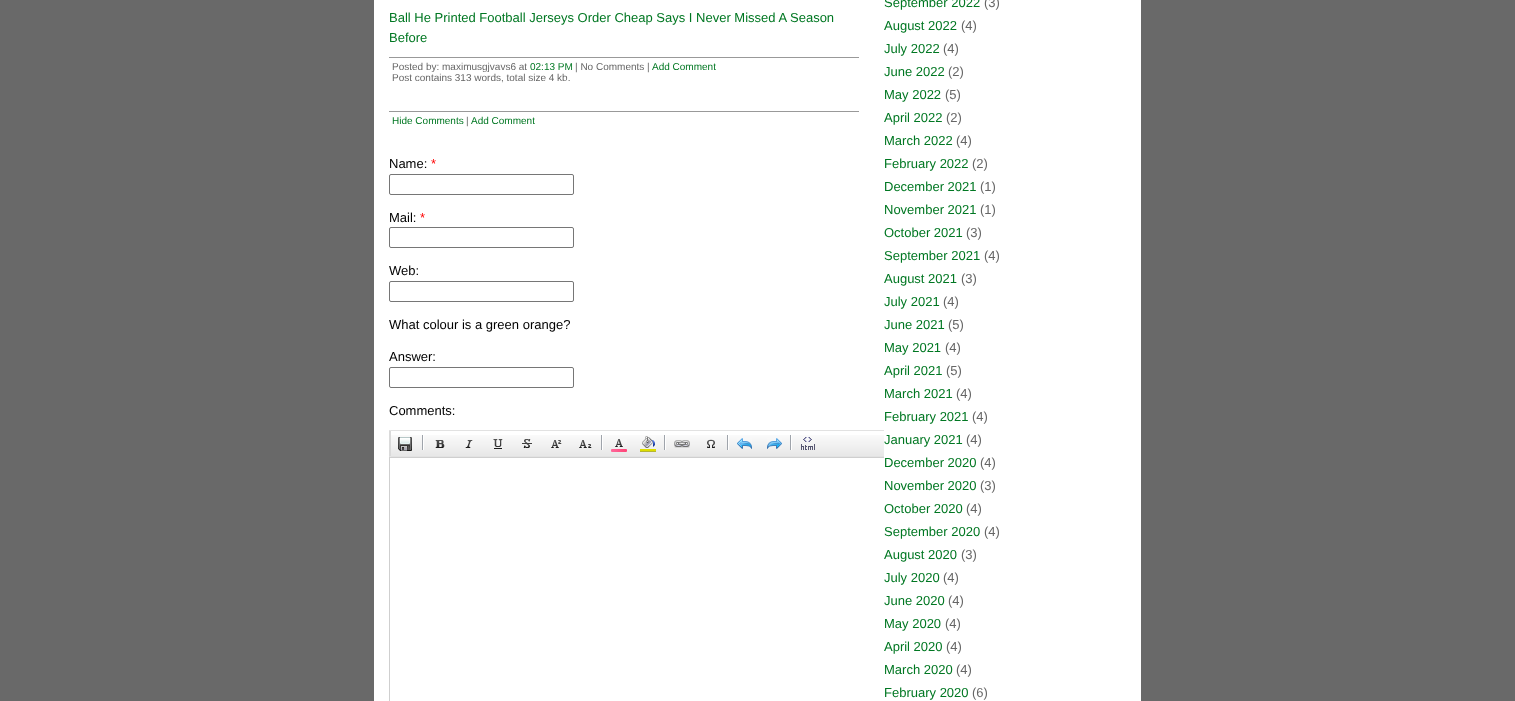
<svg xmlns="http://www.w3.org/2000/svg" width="1515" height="701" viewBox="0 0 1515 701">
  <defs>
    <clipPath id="clip1"><path d="M384 0h500v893H384z"/></clipPath>
  </defs>
  <rect width="100%" height="100%" fill="#696969"/>
  <path d="M374 0h767v701H374z" fill="#fff"/>
  <path d="M389 57h470v1H389z" fill="#999"/>
  <path d="M389 111h470v1H389z" fill="#999"/>
  <rect x="389.5" y="174.5" width="184" height="20" rx="1.5" fill="none" stroke="#767676"/>
  <rect x="389.5" y="227.5" width="184" height="20" rx="1.5" fill="none" stroke="#767676"/>
  <rect x="389.5" y="281.5" width="184" height="20" rx="1.5" fill="none" stroke="#767676"/>
  <rect x="389.5" y="367.5" width="184" height="20" rx="1.5" fill="none" stroke="#767676"/>
  <image x="391" y="435" width="493" height="21" href="img/1.png"/>
  <g clip-path="url(#clip1)">
    <path d="M389 430H889L888 431H391Z" fill="#e2e2e2"/>
    <path d="M889 457H389L391 456H888Z" fill="#e2e2e2"/>
  </g>
  <path d="M389 457V430L391 431V456Z" fill="#dadada"/>
  <image x="398" y="437" width="14" height="14" href="img/2.png"/>
  <image x="422" y="435" width="2" height="15" href="img/3.png"/>
  <image x="435" y="440" width="10" height="8" href="img/4.png"/>
  <image x="465" y="440" width="8" height="8" href="img/5.png"/>
  <image x="493" y="439" width="10" height="10" href="img/6.png"/>
  <image x="522" y="439" width="10" height="9" href="img/7.png"/>
  <image x="551" y="440" width="11" height="8" href="img/8.png"/>
  <image x="579" y="440" width="13" height="8" href="img/9.png"/>
  <image x="601" y="435" width="2" height="15" href="img/3.png"/>
  <image x="611" y="439" width="16" height="13" href="img/10.png"/>
  <image x="640" y="436" width="16" height="16" href="img/11.png"/>
  <image x="664" y="435" width="2" height="15" href="img/3.png"/>
  <image x="674" y="440" width="16" height="8" href="img/12.png"/>
  <image x="707" y="439" width="8" height="9" href="img/13.png"/>
  <image x="727" y="435" width="2" height="15" href="img/3.png"/>
  <image x="737" y="438" width="15" height="11" href="img/14.png"/>
  <image x="767" y="438" width="15" height="11" href="img/15.png"/>
  <image x="790" y="435" width="2" height="15" href="img/3.png"/>
  <image x="801" y="437" width="14" height="13" href="img/16.png"/>
  <path d="M389 457h495v1H389z" fill="#cfcfcf"/>
  <path d="M389 457h1v244H389z" fill="#cfcfcf"/>
  <g font-family="Liberation Sans" font-size="13" fill="#072">
    <text x="389" y="22">Ball He Printed Football Jerseys Order Cheap Says I Never Missed A Season</text>
    <text x="389" y="42">Before</text>
  </g>
  <text x="392" y="70" font-family="Liberation Sans" font-size="10" fill="#666">Posted by: maximusgjvavs6 at</text>
  <text x="530" y="70" font-family="Liberation Sans" font-size="10" fill="#072">02:13 PM</text>
  <text x="575" y="70" font-family="Liberation Sans" font-size="10" fill="#666">| No Comments |</text>
  <text x="652" y="70" font-family="Liberation Sans" font-size="10" fill="#072">Add Comment</text>
  <text x="392" y="81" font-family="Liberation Sans" font-size="10" fill="#666">Post contains 313 words, total size 4 kb.</text>
  <text x="392" y="124" font-family="Liberation Sans" font-size="10" fill="#072">Hide Comments</text>
  <text x="466" y="124" font-family="Liberation Sans" font-size="10" fill="#666">|</text>
  <text x="471" y="124" font-family="Liberation Sans" font-size="10" fill="#072">Add Comment</text>
  <text x="389" y="168" font-family="Liberation Sans" font-size="13" fill="#000">Name:</text>
  <text x="431" y="168" font-family="Liberation Sans" font-size="13" fill="#f00">*</text>
  <text x="389" y="222" font-family="Liberation Sans" font-size="13" fill="#000">Mail:</text>
  <text x="420" y="222" font-family="Liberation Sans" font-size="13" fill="#f00">*</text>
  <g font-family="Liberation Sans" font-size="13" fill="#000">
    <text x="389" y="275">Web:</text>
    <text x="389" y="329">What colour is a green orange?</text>
    <text x="389" y="361">Answer:</text>
    <text x="389" y="415">Comments:</text>
  </g>
  <text x="884" y="7" font-family="Liberation Sans" font-size="13" fill="#072">September 2022</text>
  <text x="984" y="7" font-family="Liberation Sans" font-size="13" fill="#666">(3)</text>
  <text x="884" y="30" font-family="Liberation Sans" font-size="13" fill="#072">August 2022</text>
  <text x="961" y="30" font-family="Liberation Sans" font-size="13" fill="#666">(4)</text>
  <text x="884" y="53" font-family="Liberation Sans" font-size="13" fill="#072">July 2022</text>
  <text x="943" y="53" font-family="Liberation Sans" font-size="13" fill="#666">(4)</text>
  <text x="884" y="76" font-family="Liberation Sans" font-size="13" fill="#072">June 2022</text>
  <text x="948" y="76" font-family="Liberation Sans" font-size="13" fill="#666">(2)</text>
  <text x="884" y="99" font-family="Liberation Sans" font-size="13" fill="#072">May 2022</text>
  <text x="945" y="99" font-family="Liberation Sans" font-size="13" fill="#666">(5)</text>
  <text x="884" y="122" font-family="Liberation Sans" font-size="13" fill="#072">April 2022</text>
  <text x="946" y="122" font-family="Liberation Sans" font-size="13" fill="#666">(2)</text>
  <text x="884" y="145" font-family="Liberation Sans" font-size="13" fill="#072">March 2022</text>
  <text x="956" y="145" font-family="Liberation Sans" font-size="13" fill="#666">(4)</text>
  <text x="884" y="168" font-family="Liberation Sans" font-size="13" fill="#072">February 2022</text>
  <text x="972" y="168" font-family="Liberation Sans" font-size="13" fill="#666">(2)</text>
  <text x="884" y="191" font-family="Liberation Sans" font-size="13" fill="#072">December 2021</text>
  <text x="980" y="191" font-family="Liberation Sans" font-size="13" fill="#666">(1)</text>
  <text x="884" y="214" font-family="Liberation Sans" font-size="13" fill="#072">November 2021</text>
  <text x="980" y="214" font-family="Liberation Sans" font-size="13" fill="#666">(1)</text>
  <text x="884" y="237" font-family="Liberation Sans" font-size="13" fill="#072">October 2021</text>
  <text x="966" y="237" font-family="Liberation Sans" font-size="13" fill="#666">(3)</text>
  <text x="884" y="260" font-family="Liberation Sans" font-size="13" fill="#072">September 2021</text>
  <text x="984" y="260" font-family="Liberation Sans" font-size="13" fill="#666">(4)</text>
  <text x="884" y="283" font-family="Liberation Sans" font-size="13" fill="#072">August 2021</text>
  <text x="961" y="283" font-family="Liberation Sans" font-size="13" fill="#666">(3)</text>
  <text x="884" y="306" font-family="Liberation Sans" font-size="13" fill="#072">July 2021</text>
  <text x="943" y="306" font-family="Liberation Sans" font-size="13" fill="#666">(4)</text>
  <text x="884" y="329" font-family="Liberation Sans" font-size="13" fill="#072">June 2021</text>
  <text x="948" y="329" font-family="Liberation Sans" font-size="13" fill="#666">(5)</text>
  <text x="884" y="352" font-family="Liberation Sans" font-size="13" fill="#072">May 2021</text>
  <text x="945" y="352" font-family="Liberation Sans" font-size="13" fill="#666">(4)</text>
  <text x="884" y="375" font-family="Liberation Sans" font-size="13" fill="#072">April 2021</text>
  <text x="946" y="375" font-family="Liberation Sans" font-size="13" fill="#666">(5)</text>
  <text x="884" y="398" font-family="Liberation Sans" font-size="13" fill="#072">March 2021</text>
  <text x="956" y="398" font-family="Liberation Sans" font-size="13" fill="#666">(4)</text>
  <text x="884" y="421" font-family="Liberation Sans" font-size="13" fill="#072">February 2021</text>
  <text x="972" y="421" font-family="Liberation Sans" font-size="13" fill="#666">(4)</text>
  <text x="884" y="444" font-family="Liberation Sans" font-size="13" fill="#072">January 2021</text>
  <text x="966" y="444" font-family="Liberation Sans" font-size="13" fill="#666">(4)</text>
  <text x="884" y="467" font-family="Liberation Sans" font-size="13" fill="#072">December 2020</text>
  <text x="980" y="467" font-family="Liberation Sans" font-size="13" fill="#666">(4)</text>
  <text x="884" y="490" font-family="Liberation Sans" font-size="13" fill="#072">November 2020</text>
  <text x="980" y="490" font-family="Liberation Sans" font-size="13" fill="#666">(3)</text>
  <text x="884" y="513" font-family="Liberation Sans" font-size="13" fill="#072">October 2020</text>
  <text x="966" y="513" font-family="Liberation Sans" font-size="13" fill="#666">(4)</text>
  <text x="884" y="536" font-family="Liberation Sans" font-size="13" fill="#072">September 2020</text>
  <text x="984" y="536" font-family="Liberation Sans" font-size="13" fill="#666">(4)</text>
  <text x="884" y="559" font-family="Liberation Sans" font-size="13" fill="#072">August 2020</text>
  <text x="961" y="559" font-family="Liberation Sans" font-size="13" fill="#666">(3)</text>
  <text x="884" y="582" font-family="Liberation Sans" font-size="13" fill="#072">July 2020</text>
  <text x="943" y="582" font-family="Liberation Sans" font-size="13" fill="#666">(4)</text>
  <text x="884" y="605" font-family="Liberation Sans" font-size="13" fill="#072">June 2020</text>
  <text x="948" y="605" font-family="Liberation Sans" font-size="13" fill="#666">(4)</text>
  <text x="884" y="628" font-family="Liberation Sans" font-size="13" fill="#072">May 2020</text>
  <text x="945" y="628" font-family="Liberation Sans" font-size="13" fill="#666">(4)</text>
  <text x="884" y="651" font-family="Liberation Sans" font-size="13" fill="#072">April 2020</text>
  <text x="946" y="651" font-family="Liberation Sans" font-size="13" fill="#666">(4)</text>
  <text x="884" y="674" font-family="Liberation Sans" font-size="13" fill="#072">March 2020</text>
  <text x="956" y="674" font-family="Liberation Sans" font-size="13" fill="#666">(4)</text>
  <text x="884" y="697" font-family="Liberation Sans" font-size="13" fill="#072">February 2020</text>
  <text x="972" y="697" font-family="Liberation Sans" font-size="13" fill="#666">(6)</text>
</svg>
